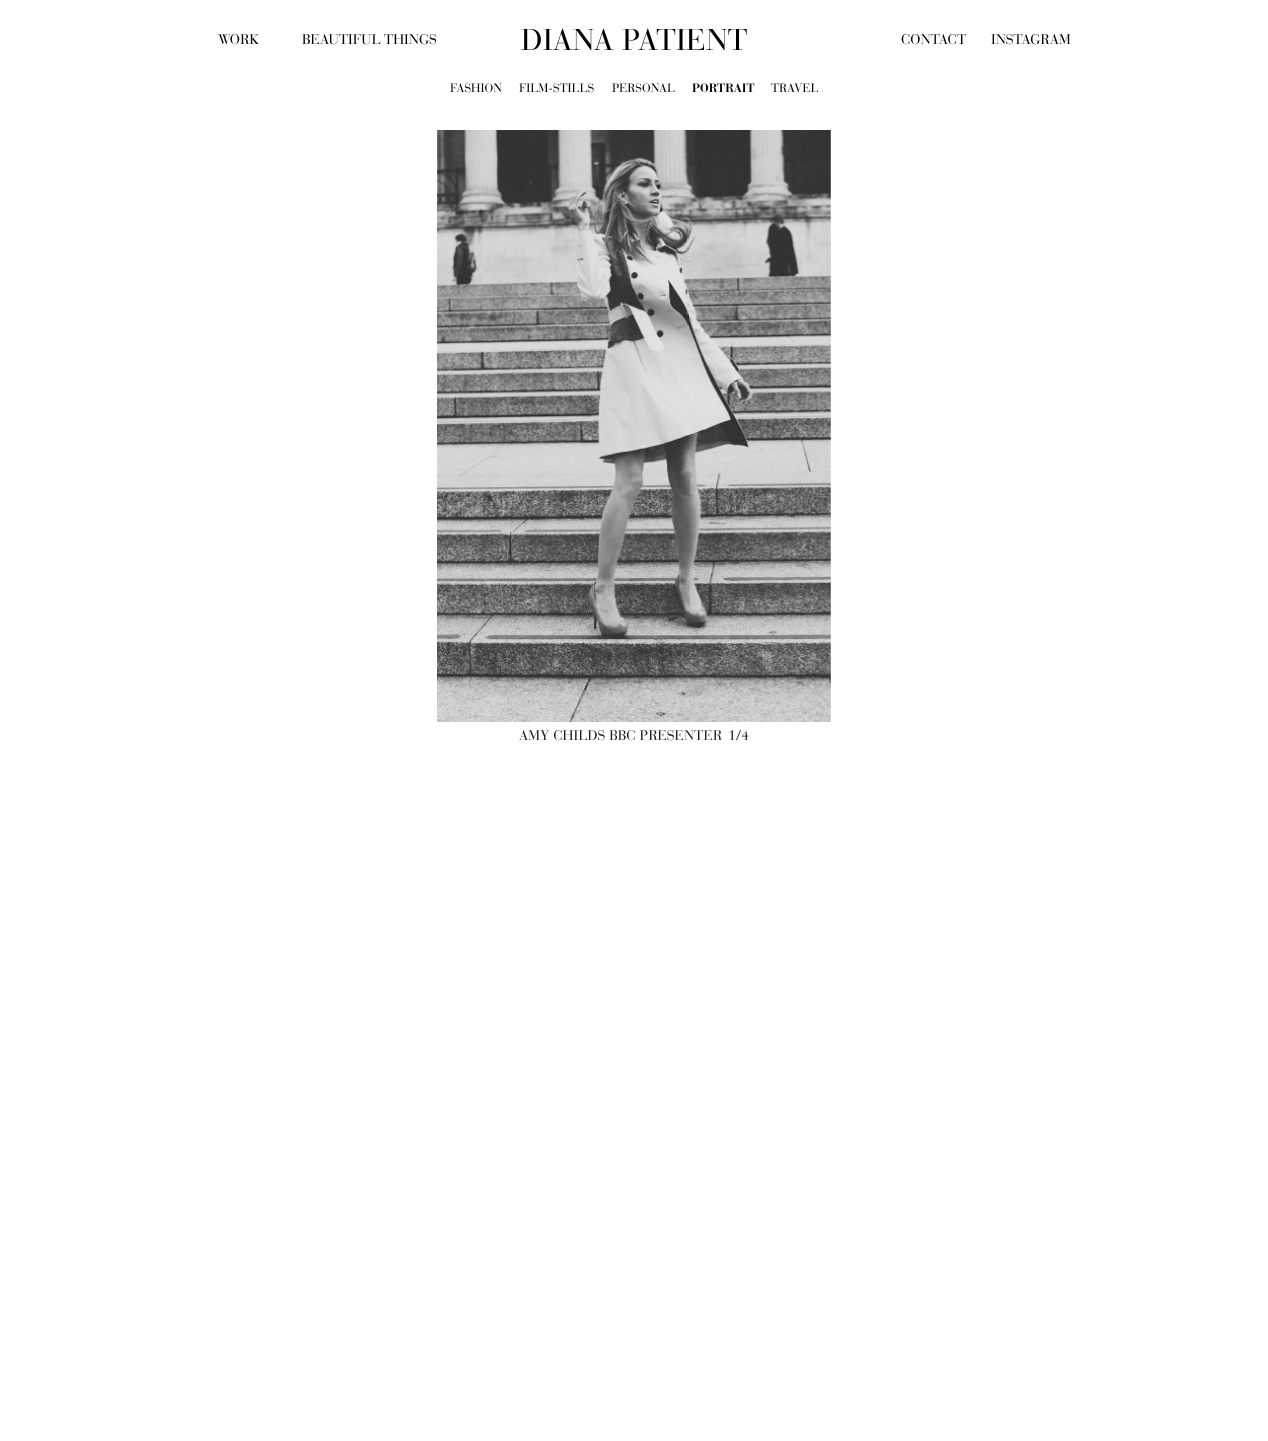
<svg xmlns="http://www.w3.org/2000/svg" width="1268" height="1441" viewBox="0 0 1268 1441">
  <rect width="100%" height="100%" fill="#fff"/>
  <image x="437" y="130" width="394" height="592" href="img/1.png"/>
  <text x="521" y="50" font-family="'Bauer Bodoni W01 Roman'" font-size="30" fill="#000">DIANA PATIENT</text>
  <g font-family="'Bauer Bodoni W01 Roman'" font-size="14" fill="#000">
    <text x="218" y="44">WORK</text>
    <text x="302" y="44">BEAUTIFUL THINGS</text>
    <text x="901" y="44">CONTACT</text>
    <text x="991" y="44">INSTAGRAM</text>
  </g>
  <g font-family="'Bauer Bodoni W01 Roman'" font-size="12" fill="#000">
    <text x="450" y="92">FASHION</text>
    <text x="519" y="92">FILM-STILLS</text>
    <text x="612" y="92">PERSONAL</text>
  </g>
  <text x="692" y="92" font-family="'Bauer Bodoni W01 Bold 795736'" font-size="12" font-weight="bold" fill="#000">PORTRAIT</text>
  <text x="771" y="92" font-family="'Bauer Bodoni W01 Roman'" font-size="12" fill="#000">TRAVEL</text>
  <g font-family="'Bauer Bodoni W01 Roman'" font-size="14" fill="#222">
    <text x="519" y="740">AMY CHILDS BBC PRESENTER</text>
    <text x="728" y="740">1/4</text>
  </g>
</svg>
